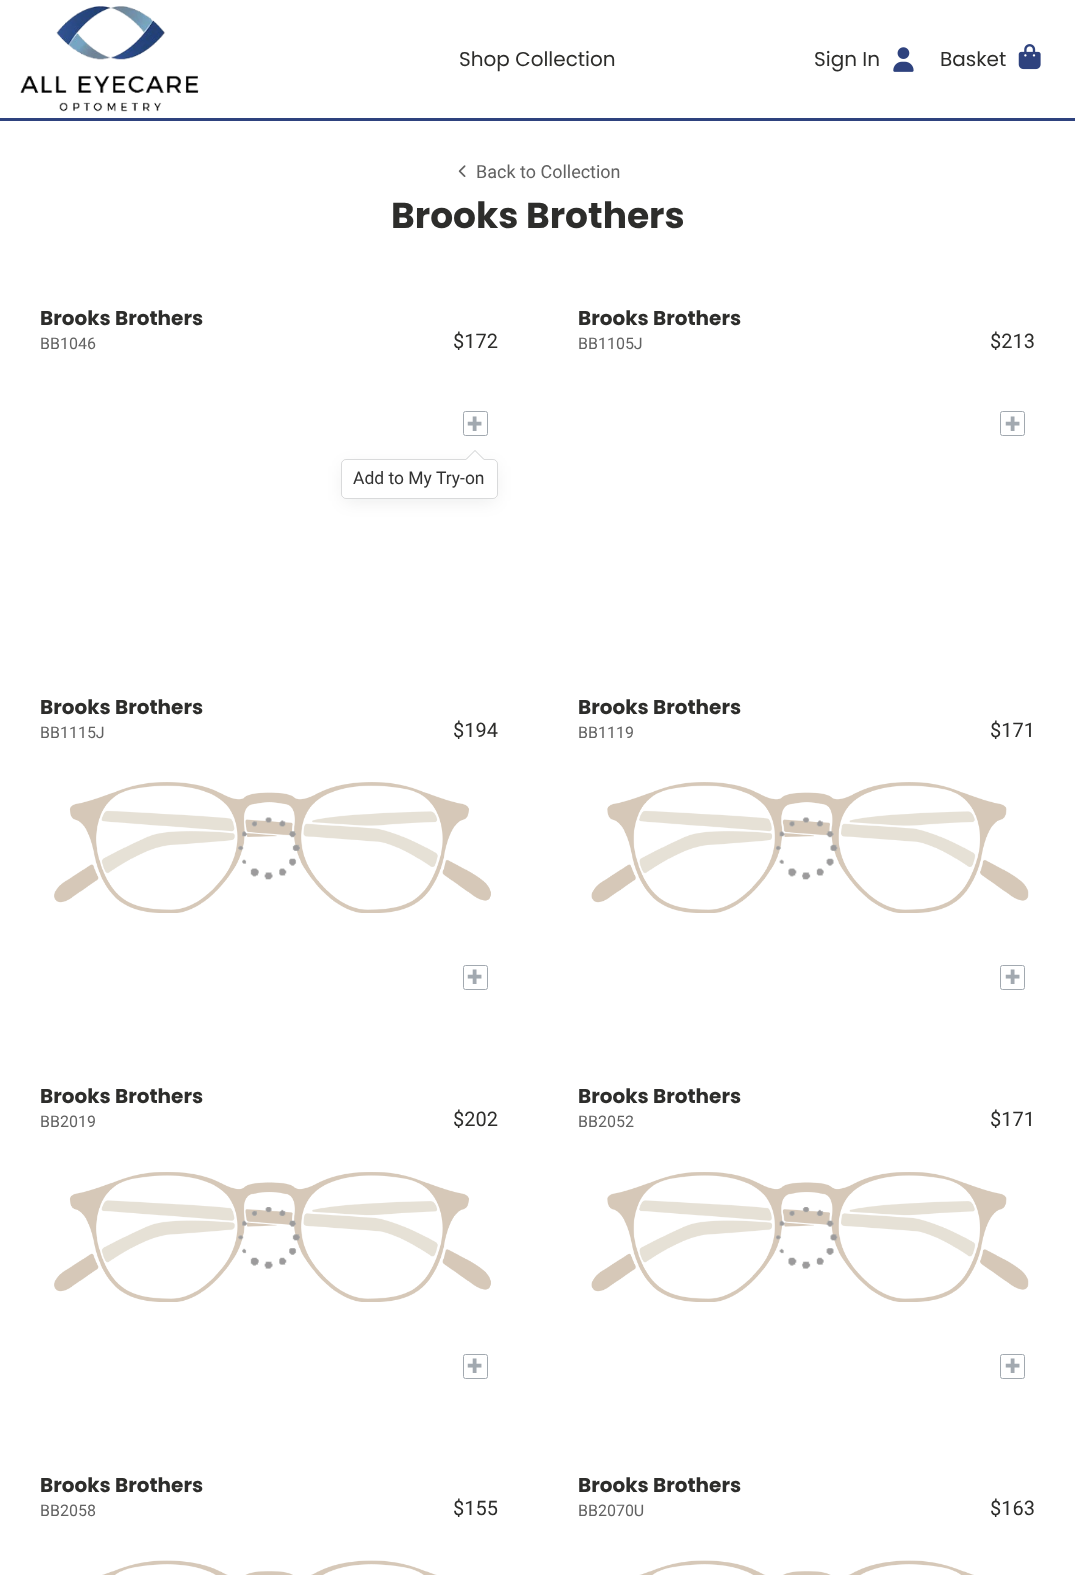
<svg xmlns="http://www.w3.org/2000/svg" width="1075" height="1575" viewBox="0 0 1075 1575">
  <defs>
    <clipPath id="clip1"><path d="M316 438H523V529H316ZM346 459H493C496 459 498 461 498 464V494C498 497 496 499 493 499H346C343 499 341 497 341 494V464C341 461 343 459 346 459Z" clip-rule="evenodd"/></clipPath>
  </defs>
  <rect width="100%" height="100%" fill="#fff"/>
  <path d="M0 118h1075v3H0z" fill="#2e427e"/>
  <image x="20" y="6" width="179" height="106" href="img/1.png"/>
  <image x="893" y="47" width="21" height="25" href="img/2.png"/>
  <image x="1018" y="44" width="23" height="26" href="img/3.png"/>
  <image x="458" y="165" width="8" height="12" href="img/4.png"/>
  <rect x="463.5" y="411.5" width="24" height="24" rx="2" fill="none" stroke="#a2a9b0"/>
  <rect x="1000.5" y="411.5" width="24" height="24" rx="2" fill="none" stroke="#a2a9b0"/>
  <image x="54" y="782" width="437" height="131" href="img/5.png"/>
  <rect x="463.5" y="965.5" width="24" height="24" rx="2" fill="none" stroke="#a2a9b0"/>
  <image x="591" y="782" width="438" height="131" href="img/6.png"/>
  <rect x="1000.5" y="965.5" width="24" height="24" rx="2" fill="none" stroke="#a2a9b0"/>
  <image x="54" y="1172" width="437" height="130" href="img/7.png"/>
  <rect x="463.5" y="1354.5" width="24" height="24" rx="2" fill="none" stroke="#a2a9b0"/>
  <image x="591" y="1172" width="438" height="130" href="img/8.png"/>
  <rect x="1000.5" y="1354.5" width="24" height="24" rx="2" fill="none" stroke="#a2a9b0"/>
  <image x="102" y="1560" width="335" height="15" href="img/9.png"/>
  <image x="639" y="1560" width="335" height="15" href="img/10.png"/>
  <g clip-path="url(#clip1)">
    <rect x="344" y="466" width="151" height="35" rx="2.5" fill="#00081014" filter="blur(9px)"/>
  </g>
  <rect x="341.5" y="459.5" width="156" height="39" rx="4.5" fill="none" stroke="#00081026"/>
  <path d="M484 459H466L475 450Z" fill="#00081033"/>
  <path d="M485 461H465L475 451Z" fill="#fff"/>
  <g font-family="Poppins" font-size="20" fill="#2d2d2b">
    <text x="459" y="66">Shop Collection</text>
    <text x="814" y="66">Sign In</text>
    <text x="940" y="66">Basket</text>
  </g>
  <text x="476" y="178" font-family="Roboto" font-size="18" fill="#626262">Back to Collection</text>
  <text x="391" y="228" font-family="Poppins" font-size="36" font-weight="bold" fill="#2d2d2b">Brooks Brothers</text>
  <text x="40" y="325" font-family="Poppins" font-size="20" font-weight="bold" fill="#2d2d2b">Brooks Brothers</text>
  <text x="40" y="349" font-family="Roboto" font-size="16" fill="#626262">BB1046</text>
  <text x="453" y="348" font-family="Roboto" font-size="20" fill="#2d2d2b">$172</text>
  <text x="467" y="433" font-family="Roboto" font-size="28" font-weight="bold" fill="#a2a9b0">+</text>
  <text x="578" y="325" font-family="Poppins" font-size="20" font-weight="bold" fill="#2d2d2b">Brooks Brothers</text>
  <text x="578" y="349" font-family="Roboto" font-size="16" fill="#626262">BB1105J</text>
  <text x="990" y="348" font-family="Roboto" font-size="20" fill="#2d2d2b">$213</text>
  <text x="1005" y="433" font-family="Roboto" font-size="28" font-weight="bold" fill="#a2a9b0">+</text>
  <text x="40" y="714" font-family="Poppins" font-size="20" font-weight="bold" fill="#2d2d2b">Brooks Brothers</text>
  <text x="40" y="738" font-family="Roboto" font-size="16" fill="#626262">BB1115J</text>
  <text x="453" y="737" font-family="Roboto" font-size="20" fill="#2d2d2b">$194</text>
  <text x="467" y="986" font-family="Roboto" font-size="28" font-weight="bold" fill="#a2a9b0">+</text>
  <text x="578" y="714" font-family="Poppins" font-size="20" font-weight="bold" fill="#2d2d2b">Brooks Brothers</text>
  <text x="578" y="738" font-family="Roboto" font-size="16" fill="#626262">BB1119</text>
  <text x="990" y="737" font-family="Roboto" font-size="20" fill="#2d2d2b">$171</text>
  <text x="1005" y="986" font-family="Roboto" font-size="28" font-weight="bold" fill="#a2a9b0">+</text>
  <text x="40" y="1103" font-family="Poppins" font-size="20" font-weight="bold" fill="#2d2d2b">Brooks Brothers</text>
  <text x="40" y="1127" font-family="Roboto" font-size="16" fill="#626262">BB2019</text>
  <text x="453" y="1126" font-family="Roboto" font-size="20" fill="#2d2d2b">$202</text>
  <text x="467" y="1375" font-family="Roboto" font-size="28" font-weight="bold" fill="#a2a9b0">+</text>
  <text x="578" y="1103" font-family="Poppins" font-size="20" font-weight="bold" fill="#2d2d2b">Brooks Brothers</text>
  <text x="578" y="1127" font-family="Roboto" font-size="16" fill="#626262">BB2052</text>
  <text x="990" y="1126" font-family="Roboto" font-size="20" fill="#2d2d2b">$171</text>
  <text x="1005" y="1375" font-family="Roboto" font-size="28" font-weight="bold" fill="#a2a9b0">+</text>
  <text x="40" y="1492" font-family="Poppins" font-size="20" font-weight="bold" fill="#2d2d2b">Brooks Brothers</text>
  <text x="40" y="1516" font-family="Roboto" font-size="16" fill="#626262">BB2058</text>
  <text x="453" y="1515" font-family="Roboto" font-size="20" fill="#2d2d2b">$155</text>
  <text x="578" y="1492" font-family="Poppins" font-size="20" font-weight="bold" fill="#2d2d2b">Brooks Brothers</text>
  <text x="578" y="1516" font-family="Roboto" font-size="16" fill="#626262">BB2070U</text>
  <text x="990" y="1515" font-family="Roboto" font-size="20" fill="#2d2d2b">$163</text>
  <text x="353" y="484" font-family="Roboto" font-size="17.5" fill="#333">Add to My Try-on</text>
</svg>
